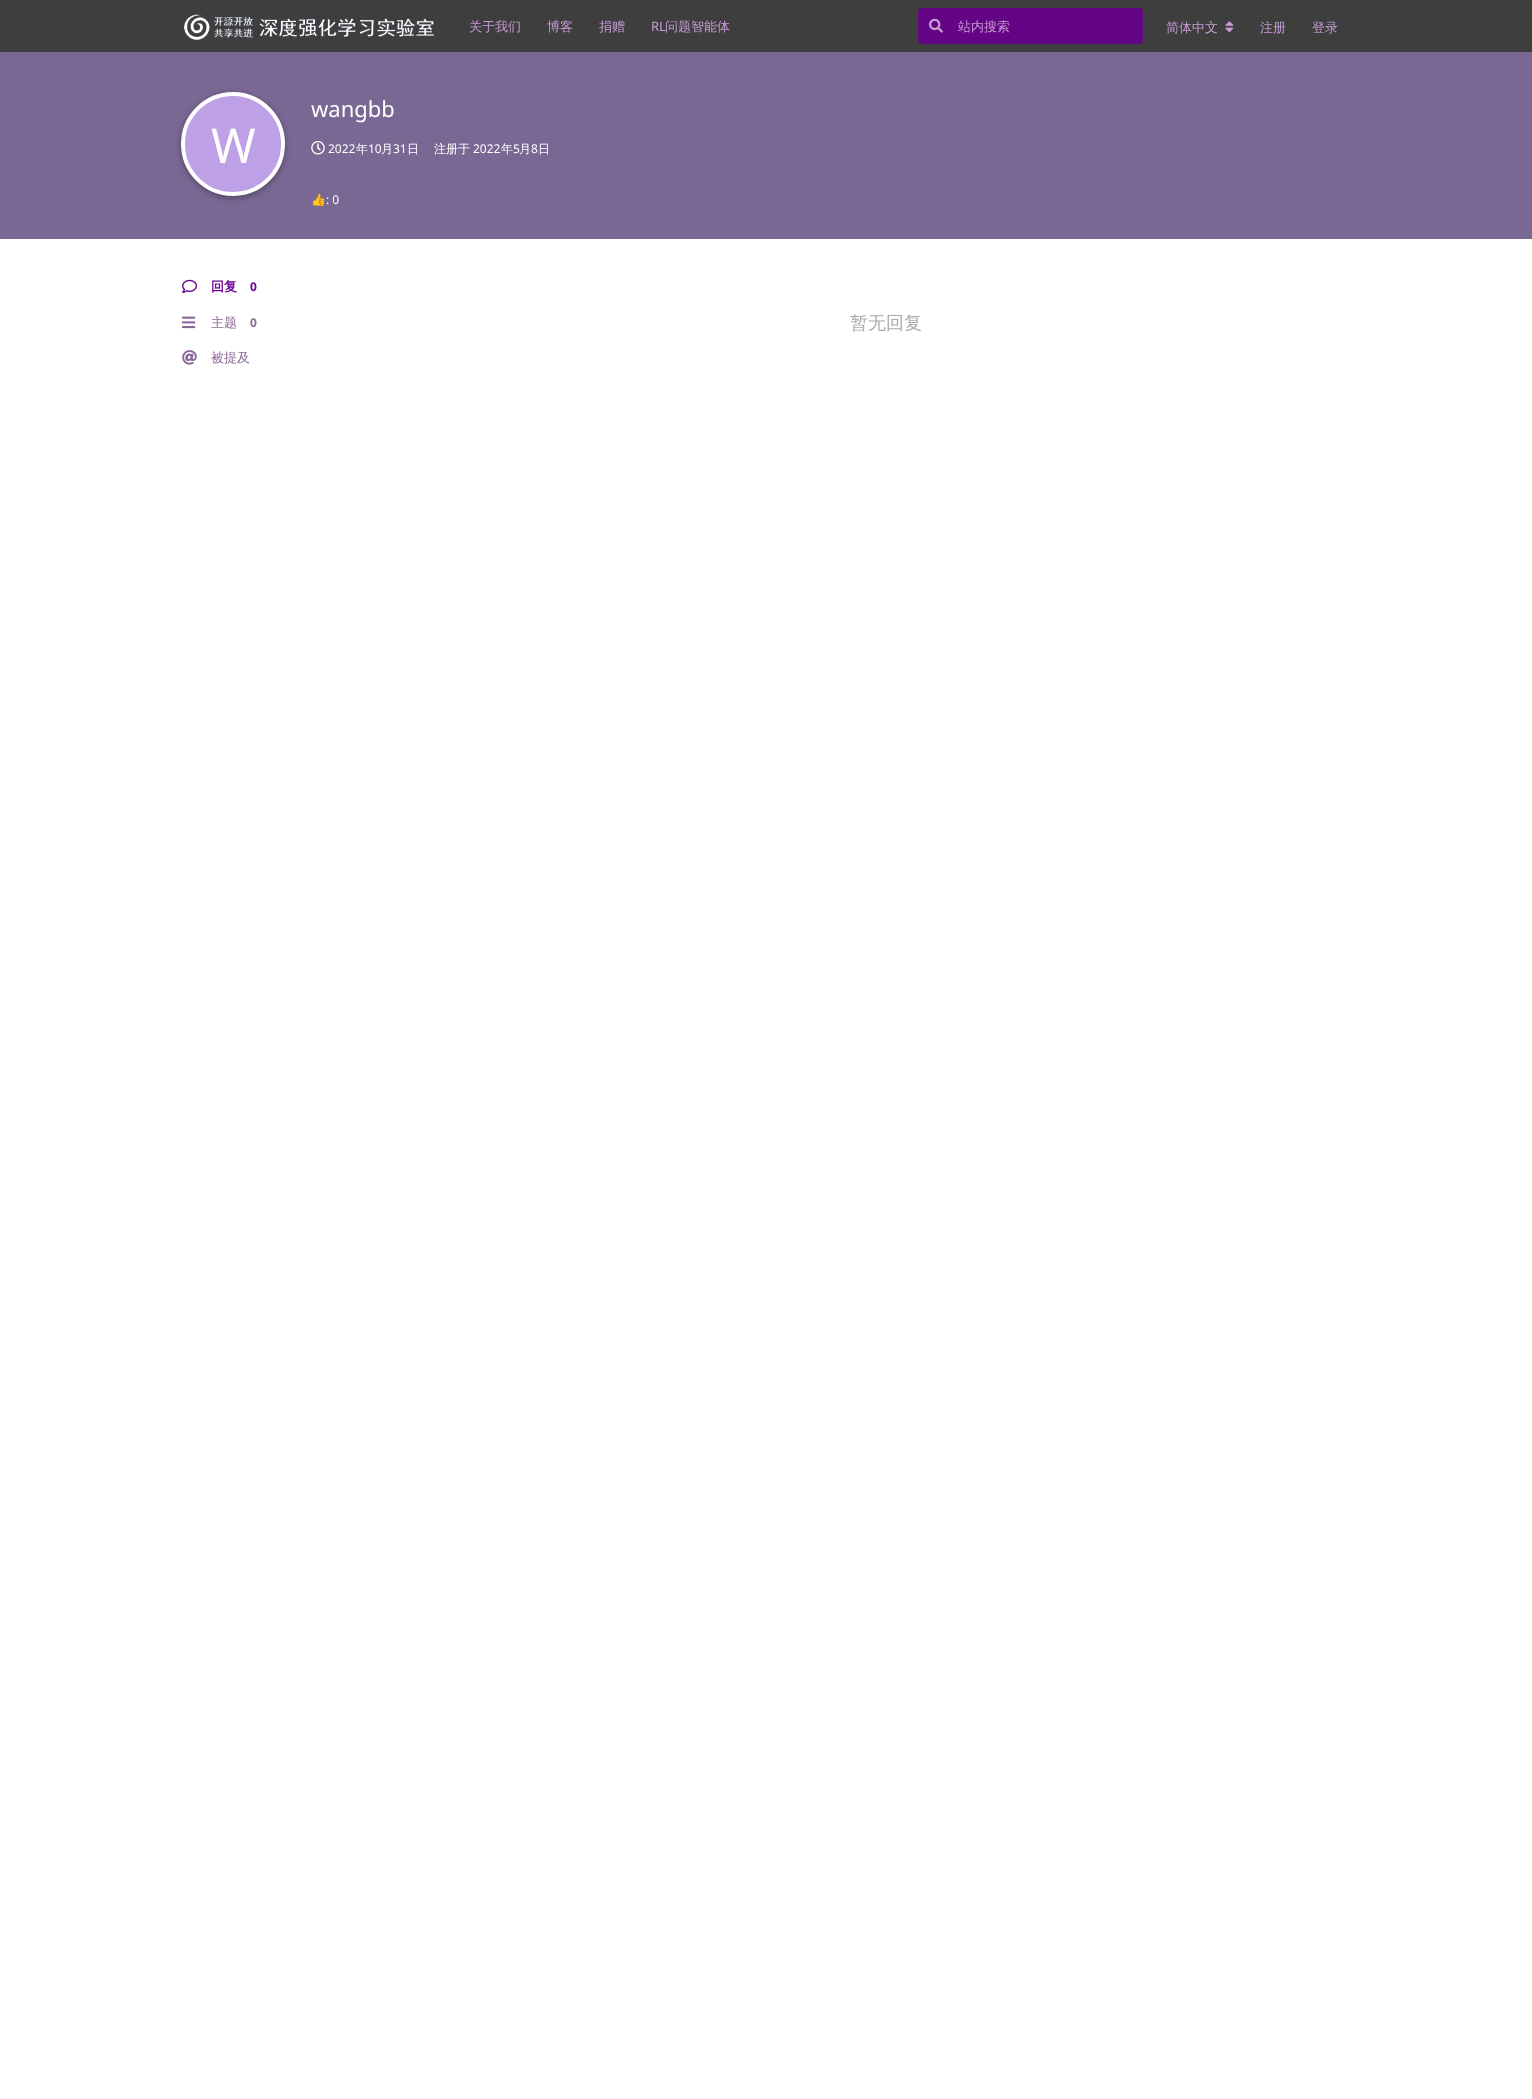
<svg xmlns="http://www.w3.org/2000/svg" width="1532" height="2099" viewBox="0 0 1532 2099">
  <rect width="100%" height="100%" fill="#fff"/>
  <path d="M0 0h1532v52H0z" fill="#3e3e3e"/>
  <image x="183" y="14" width="256" height="27" href="img/1.png"/>
  <rect x="918" y="8" width="225" height="36" rx="4" fill="#630584"/>
  <image x="929" y="18" width="14" height="15" href="img/2.png"/>
  <image x="1225" y="21" width="9" height="12" href="img/3.png"/>
  <path d="M0 52h1532v187H0z" fill="#7a6894"/>
  <rect x="181" y="94" width="104" height="104" rx="52" fill="#00000059" filter="blur(3px)"/>
  <circle cx="233" cy="144" r="50" fill="#bda0e5" stroke="#fff" stroke-width="4"/>
  <image x="311" y="141" width="14" height="14" href="img/4.png"/>
  <image x="182" y="279" width="15" height="14" href="img/5.png"/>
  <image x="182" y="316" width="14" height="13" href="img/6.png"/>
  <image x="182" y="350" width="15" height="15" href="img/7.png"/>
  <g font-family="WenQuanYi Zen Hei" font-size="13" font-weight="500" fill="#c59bd4">
    <text x="469" y="31">关于我们</text>
    <text x="547" y="31">博客</text>
    <text x="599" y="31">捐赠</text>
  </g>
  <text x="651" y="31" font-family="Noto Sans" font-size="13" fill="#c59bd4">RL</text>
  <g font-family="WenQuanYi Zen Hei" font-size="13" font-weight="500" fill="#c59bd4">
    <text x="665" y="31">问题智能体</text>
    <text x="958" y="31">站内搜索</text>
    <text x="1166" y="32">简体中文</text>
    <text x="1260" y="32">注册</text>
    <text x="1312" y="32">登录</text>
  </g>
  <text x="311" y="117" font-family="Noto Sans" font-size="22" fill="#fff">wangbb</text>
  <text x="211" y="163" font-family="Noto Sans" font-size="48" fill="#fff">W</text>
  <text x="328" y="153" font-family="Noto Sans" font-size="12" fill="#fff">2022</text>
  <text x="356" y="153" font-family="WenQuanYi Zen Hei" font-size="12" font-weight="500" fill="#fff">年</text>
  <text x="368" y="153" font-family="Noto Sans" font-size="12" fill="#fff">10</text>
  <text x="381" y="153" font-family="WenQuanYi Zen Hei" font-size="12" font-weight="500" fill="#fff">月</text>
  <text x="393" y="153" font-family="Noto Sans" font-size="12" fill="#fff">31</text>
  <g font-family="WenQuanYi Zen Hei" font-size="12" font-weight="500" fill="#fff">
    <text x="407" y="153">日</text>
    <text x="434" y="153">注册于</text>
  </g>
  <text x="473" y="153" font-family="Noto Sans" font-size="12" fill="#fff">2022</text>
  <text x="501" y="153" font-family="WenQuanYi Zen Hei" font-size="12" font-weight="500" fill="#fff">年</text>
  <text x="513" y="153" font-family="Noto Sans" font-size="12" fill="#fff">5</text>
  <text x="519" y="153" font-family="WenQuanYi Zen Hei" font-size="12" font-weight="500" fill="#fff">月</text>
  <text x="531" y="153" font-family="Noto Sans" font-size="12" fill="#fff">8</text>
  <text x="538" y="153" font-family="WenQuanYi Zen Hei" font-size="12" font-weight="500" fill="#fff">日</text>
  <text x="311" y="204" font-family="Noto Color Emoji" font-size="12" fill="#fff">👍</text>
  <text x="326" y="204" font-family="Noto Sans" font-size="12" fill="#fff">: 0</text>
  <text x="211" y="291" font-family="WenQuanYi Zen Hei" font-size="13" font-weight="bold" fill="#6e0693">回复</text>
  <text x="250" y="291" font-family="Noto Sans" font-size="12" font-weight="bold" fill="#6e0693">0</text>
  <text x="211" y="327" font-family="WenQuanYi Zen Hei" font-size="13" font-weight="500" fill="#8b6699">主题</text>
  <text x="250" y="327" font-family="Noto Sans" font-size="12" font-weight="bold" fill="#8b6699">0</text>
  <text x="211" y="362" font-family="WenQuanYi Zen Hei" font-size="13" font-weight="500" fill="#8b6699">被提及</text>
  <text x="850" y="329" font-family="WenQuanYi Zen Hei" font-size="18" font-weight="500" fill="#aaa">暂无回复</text>
</svg>
